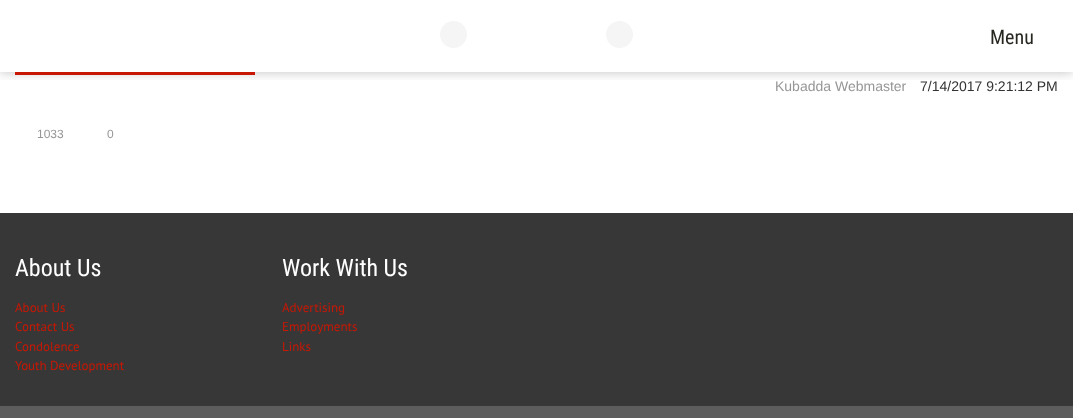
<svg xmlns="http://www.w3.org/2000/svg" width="1073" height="418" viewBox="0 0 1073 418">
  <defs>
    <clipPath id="clip1"><path d="M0 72h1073v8H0z"/></clipPath>
  </defs>
  <rect width="100%" height="100%" fill="#fff"/>
  <circle cx="453.5" cy="34.5" r="13.5" fill="#f5f5f5"/>
  <circle cx="619.5" cy="34.5" r="13.5" fill="#f5f5f5"/>
  <g clip-path="url(#clip1)">
    <path d="M0 0h1073v72H0z" fill="#00000040" filter="blur(6px)"/>
  </g>
  <path d="M15 72h240v3H15z" fill="#c81704"/>
  <path d="M0 213h1073v193H0z" fill="#373737"/>
  <path d="M0 406h1073v12H0z" fill="#5d5d5d"/>
  <text x="990" y="44" font-family="Roboto Condensed" font-size="20" fill="#272621">Menu</text>
  <text x="775" y="91" font-family="Liberation Sans" font-size="14" fill="#969696">Kubadda Webmaster</text>
  <text x="920" y="91" font-family="Liberation Sans" font-size="14" fill="#323232">7/14/2017 9:21:12 PM</text>
  <g font-family="Liberation Sans" font-size="12" fill="#969696">
    <text x="37" y="138">1033</text>
    <text x="107" y="138">0</text>
  </g>
  <text x="15" y="276" font-family="Roboto Condensed" font-size="24" fill="#fff">About Us</text>
  <g font-family="PT Sans" font-size="13" fill="#c81704">
    <text x="15" y="312">About Us</text>
    <text x="15" y="331">Contact Us</text>
    <text x="15" y="351">Condolence</text>
    <text x="15" y="370">Youth Development</text>
  </g>
  <text x="282" y="276" font-family="Roboto Condensed" font-size="24" fill="#fff">Work With Us</text>
  <g font-family="PT Sans" font-size="13" fill="#c81704">
    <text x="282" y="312">Advertising</text>
    <text x="282" y="331">Employments</text>
    <text x="282" y="351">Links</text>
  </g>
</svg>
